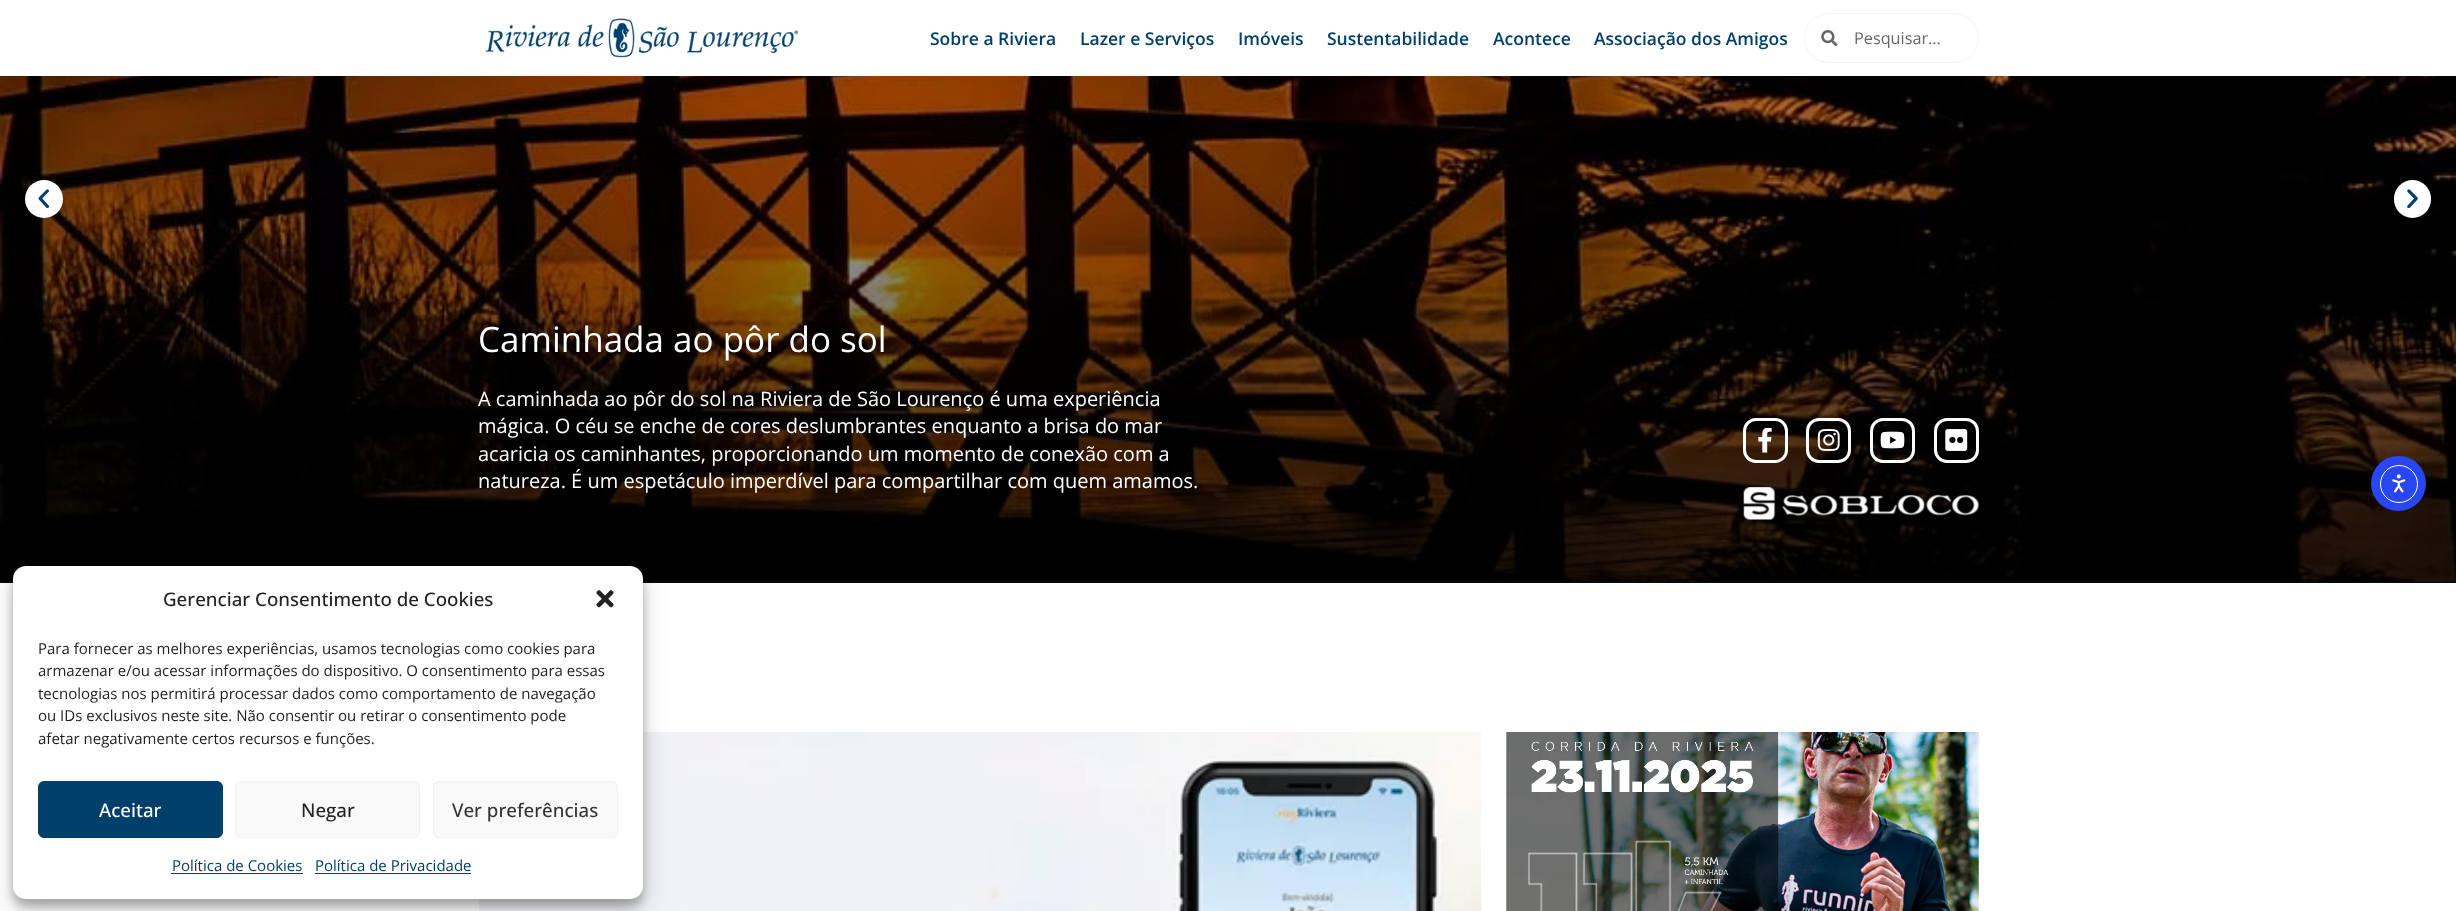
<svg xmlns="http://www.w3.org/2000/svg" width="2456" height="911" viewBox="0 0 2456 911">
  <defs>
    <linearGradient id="g1" gradientUnits="userSpaceOnUse" x1="1228" y1="-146" x2="1228" y2="583"><stop offset="0" stop-color="#000" stop-opacity="0"/><stop offset="1" stop-color="#000" stop-opacity="0.8"/></linearGradient>
  </defs>
  <rect width="100%" height="100%" fill="#fff"/>
  <path d="M0 581h2456v2H0z" fill="#003f69"/>
  <image x="0" y="76" width="2456" height="506" href="img/5.png"/>
  <path d="M0 76h2456v507H0z" fill="url(#g1)"/>
  <path d="M0 13h2456v76H0z" fill="#0000001a" filter="blur(12.5px)"/>
  <path d="M0 0h2456v76H0z" fill="#fff"/>
  <image x="485" y="18" width="314" height="40" href="img/1.png"/>
  <rect x="1804.5" y="13.5" width="174" height="49" rx="24.5" fill="none" stroke="#f4f4f4"/>
  <image x="1821" y="30" width="17" height="16" href="img/2.png"/>
  <circle cx="44" cy="199" r="19" fill="#fff"/>
  <image x="38" y="189" width="12" height="20" href="img/3.png"/>
  <rect x="2394" y="180" width="37" height="38" rx="18.5" fill="#fff"/>
  <image x="2407" y="189" width="11" height="20" href="img/4.png"/>
  <rect x="1744.5" y="419.5" width="42" height="42" rx="11.5" fill="none" stroke="#fff" stroke-width="3"/>
  <image x="1758" y="428" width="14" height="25" href="img/6.png"/>
  <rect x="1807.5" y="419.5" width="42" height="42" rx="11.5" fill="none" stroke="#fff" stroke-width="3"/>
  <image x="1817" y="429" width="23" height="22" href="img/7.png"/>
  <rect x="1871.5" y="419.5" width="42" height="42" rx="11.5" fill="none" stroke="#fff" stroke-width="3"/>
  <image x="1880" y="431" width="25" height="18" href="img/8.png"/>
  <rect x="1935.5" y="419.5" width="42" height="42" rx="11.5" fill="none" stroke="#fff" stroke-width="3"/>
  <image x="1945" y="429" width="23" height="22" href="img/9.png"/>
  <image x="1743" y="487" width="236" height="33" href="img/10.png"/>
  <image x="479" y="732" width="1003" height="179" href="img/11.png"/>
  <image x="1506" y="732" width="473" height="179" href="img/12.png"/>
  <circle cx="2398.5" cy="483.5" r="27.5" fill="#2847f3"/>
  <circle cx="2399" cy="484" r="18.5" fill="none" stroke="#fff"/>
  <image x="2392" y="474" width="14" height="19" href="img/13.png"/>
  <rect x="13" y="574" width="630" height="332" rx="13" fill="#0000003b" filter="blur(4px)"/>
  <rect x="13" y="579" width="630" height="332" rx="13" fill="#00000030" filter="blur(12.5px)"/>
  <rect x="13" y="566" width="630" height="333" rx="13" fill="#fff"/>
  <image x="596" y="590" width="18" height="18" href="img/14.png"/>
  <rect x="38.5" y="781.5" width="184" height="56" rx="5.5" fill="#003f69" stroke="#003f69"/>
  <rect x="235.5" y="781.5" width="184" height="56" rx="5.5" fill="#f9f9f9" stroke="#f2f2f2"/>
  <rect x="433.5" y="781.5" width="184" height="56" rx="5.5" fill="#f9f9f9" stroke="#f2f2f2"/>
  <path d="M171 873h132v1H171z" fill="#003f69"/>
  <path d="M315 873h156v1H315z" fill="#003f69"/>
  <g font-family="Open Sans" font-size="17.5" font-weight="600" fill="#003f69">
    <text x="930" y="45">Sobre a Riviera</text>
    <text x="1080" y="45">Lazer e Serviços</text>
    <text x="1238" y="45">Imóveis</text>
    <text x="1327" y="45">Sustentabilidade</text>
    <text x="1493" y="45">Acontece</text>
    <text x="1594" y="45">Associação dos Amigos</text>
  </g>
  <text x="1854" y="44" font-family="Open Sans" font-size="16.25" fill="#666">Pesquisar...</text>
  <text x="478" y="352" font-family="Open Sans" font-size="35" fill="#fff">Caminhada ao pôr do sol</text>
  <g font-family="Open Sans" font-size="20" fill="#fff">
    <text x="478" y="406">A caminhada ao pôr do sol na Riviera de São Lourenço é uma experiência</text>
    <text x="478" y="433">mágica. O céu se enche de cores deslumbrantes enquanto a brisa do mar</text>
    <text x="478" y="461">acaricia os caminhantes, proporcionando um momento de conexão com a</text>
    <text x="478" y="488">natureza. É um espetáculo imperdível para compartilhar com quem amamos.</text>
  </g>
  <text x="163" y="606" font-family="Open Sans" font-size="18.75" font-weight="500" fill="#222">Gerenciar Consentimento de Cookies</text>
  <g font-family="Open Sans" font-size="15" fill="#222">
    <text x="38" y="654">Para fornecer as melhores experiências, usamos tecnologias como cookies para</text>
    <text x="38" y="676">armazenar e/ou acessar informações do dispositivo. O consentimento para essas</text>
    <text x="38" y="699">tecnologias nos permitirá processar dados como comportamento de navegação</text>
    <text x="38" y="721">ou IDs exclusivos neste site. Não consentir ou retirar o consentimento pode</text>
    <text x="38" y="744">afetar negativamente certos recursos e funções.</text>
  </g>
  <text x="99" y="817" font-family="Open Sans" font-size="18.75" font-weight="500" fill="#fff">Aceitar</text>
  <text x="301" y="817" font-family="Open Sans" font-size="18.75" font-weight="500" fill="#222">Negar</text>
  <text x="452" y="817" font-family="Open Sans" font-size="18.75" font-weight="500" fill="#333">Ver preferências</text>
  <g font-family="Open Sans" font-size="15" fill="#003f69">
    <text x="172" y="871">Política de Cookies</text>
    <text x="315" y="871">Política de Privacidade</text>
  </g>
</svg>
